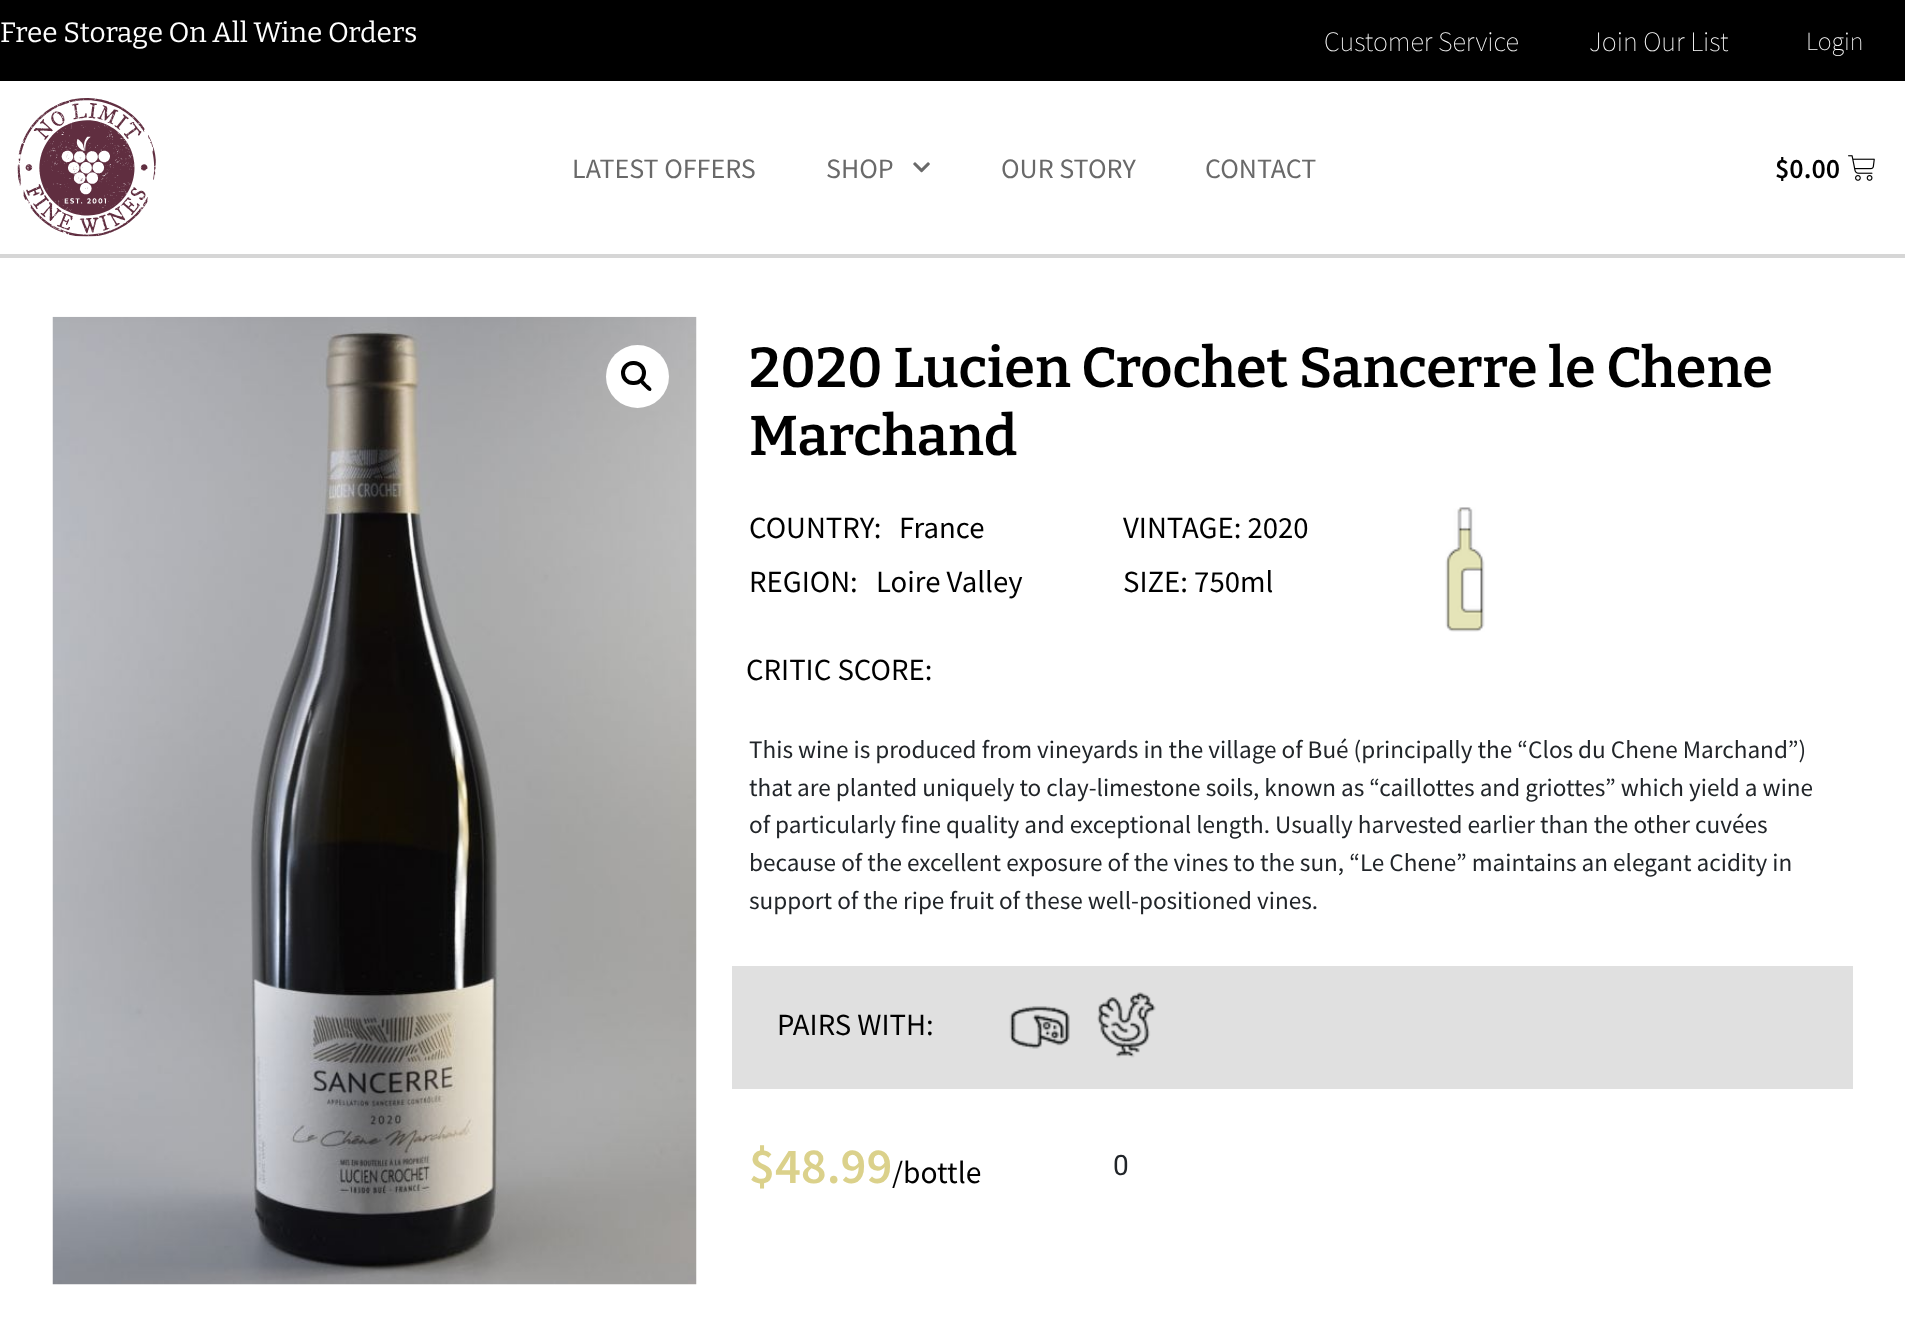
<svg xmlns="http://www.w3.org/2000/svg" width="1905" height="1329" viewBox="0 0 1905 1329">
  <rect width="100%" height="100%" fill="#fff"/>
  <path d="M0 0h1905v81H0z" fill="#000"/>
  <path d="M0 254h1905v4H0z" fill="#d6d6d6"/>
  <image x="17" y="98" width="139" height="139" href="img/1.png"/>
  <image x="913" y="162" width="17" height="11" href="img/2.png"/>
  <image x="1848" y="155" width="27" height="26" href="img/3.png"/>
  <image x="52" y="316" width="645" height="969" href="img/4.png"/>
  <circle cx="637.5" cy="376.5" r="31.5" fill="#fff"/>
  <rect x="623" y="363" width="21" height="20" rx="10" fill="none" stroke="#000" stroke-width="4"/>
  <path d="M641 380.5C643 378.5 646 383.5 647 384.5C648.5 385.5 653 388.5 651 390.5C649 392.5 646 388 644.5 387C643.5 386 639 382.5 641 380.5Z" fill="#000"/>
  <image x="1445" y="507" width="40" height="125" href="img/5.png"/>
  <path d="M732 966h1121v123H732z" fill="#e0e0e0"/>
  <image x="1009" y="1006" width="61" height="43" href="img/6.png"/>
  <image x="1097" y="992" width="59" height="66" href="img/7.png"/>
  <text x="0" y="42" font-family="Bitter" font-size="28" fill="#fff">Free Storage On All Wine Orders</text>
  <g font-family="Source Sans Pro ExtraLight" font-size="28" font-weight="200" fill="#fff">
    <text x="1324" y="51">Customer Service</text>
    <text x="1589" y="51">Join Our List</text>
  </g>
  <text x="1806" y="50" font-family="Source Sans Pro ExtraLight" font-size="26" font-weight="200" fill="#fff">Login</text>
  <g font-family="Source Sans Pro" font-size="28" fill="#696969">
    <text x="572" y="178">LATEST OFFERS</text>
    <text x="826" y="178">SHOP</text>
    <text x="1001" y="178">OUR STORY</text>
    <text x="1205" y="178">CONTACT</text>
  </g>
  <text x="1775" y="178" font-family="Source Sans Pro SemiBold" font-size="28" font-weight="600" fill="#000">$0.00</text>
  <g font-family="Bitter" font-size="56" font-weight="600" fill="#000">
    <text x="749" y="387">2020 Lucien Crochet Sancerre le Chene</text>
    <text x="749" y="455">Marchand</text>
  </g>
  <g font-family="Source Sans Pro" font-size="30.75" fill="#000">
    <text x="749" y="538">COUNTRY:</text>
    <text x="899" y="538">France</text>
    <text x="749" y="592">REGION:</text>
    <text x="876" y="592">Loire Valley</text>
    <text x="1123" y="538">VINTAGE: 2020</text>
    <text x="1123" y="592">SIZE: 750ml</text>
    <text x="746" y="680">CRITIC SCORE:</text>
  </g>
  <g font-family="Source Sans Pro" font-size="25.2" fill="#212529">
    <text x="749" y="758">This wine is produced from vineyards in the village of Bué (principally the “Clos du Chene Marchand”)</text>
    <text x="749" y="796">that are planted uniquely to clay-limestone soils, known as “caillottes and griottes” which yield a wine</text>
    <text x="749" y="833">of particularly fine quality and exceptional length. Usually harvested earlier than the other cuvées</text>
    <text x="749" y="871">because of the excellent exposure of the vines to the sun, “Le Chene” maintains an elegant acidity in</text>
    <text x="749" y="909">support of the ripe fruit of these well-positioned vines.</text>
  </g>
  <text x="777" y="1035" font-family="Source Sans Pro" font-size="30.75" fill="#000">PAIRS WITH:</text>
  <text x="749" y="1183" font-family="Source Sans Pro SemiBold" font-size="50.5" font-weight="600" fill="#dbd18b">$48.99</text>
  <text x="892" y="1183" font-family="Source Sans Pro" font-size="31.5" fill="#000">/bottle</text>
  <text x="1113" y="1175" font-family="Roboto" font-size="28" fill="#212529">0</text>
</svg>
